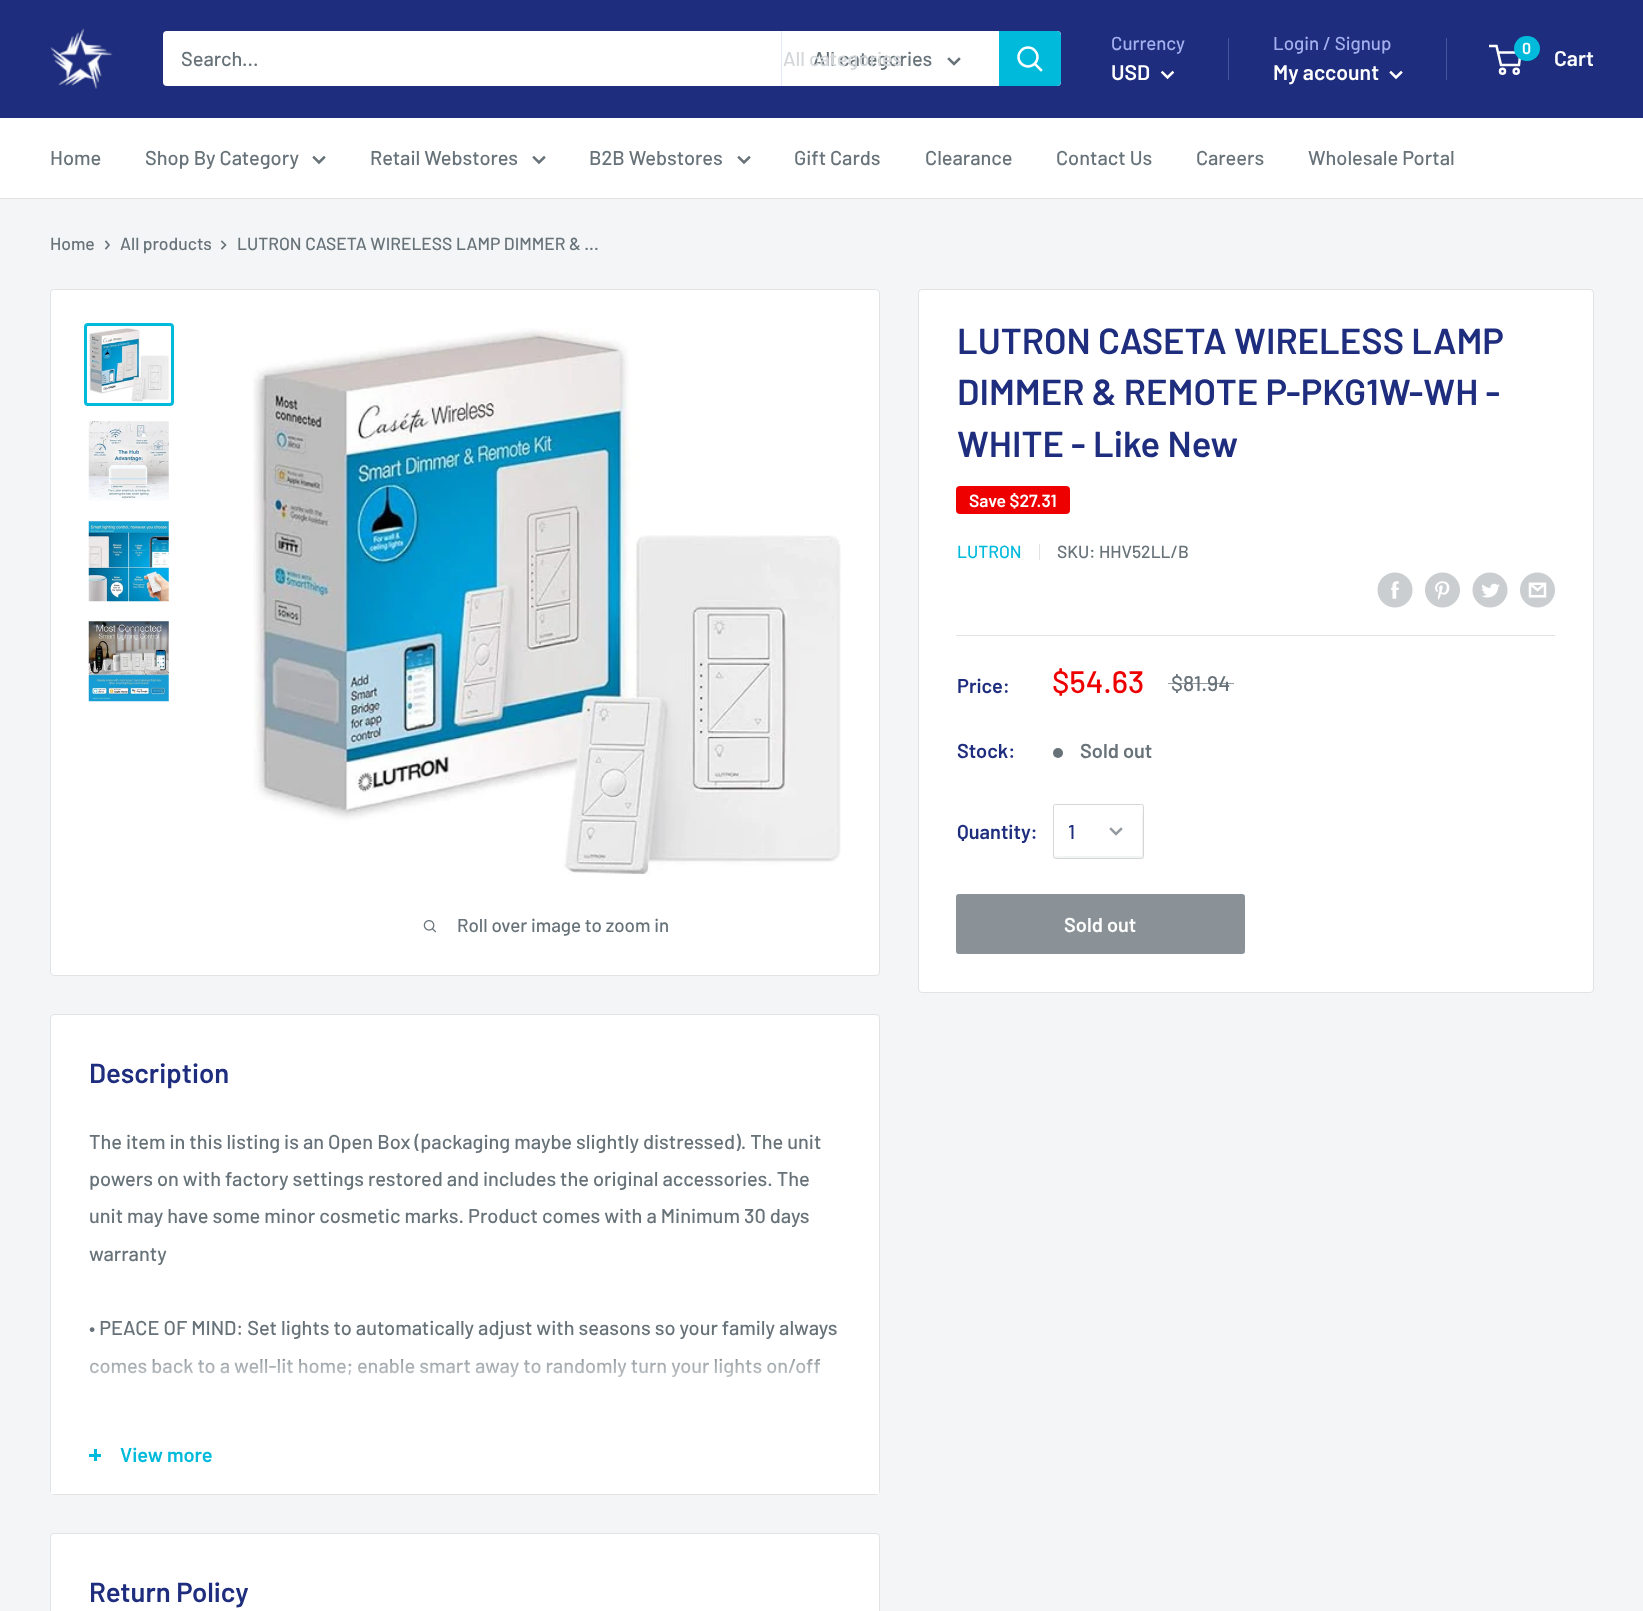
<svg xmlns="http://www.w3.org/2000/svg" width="1643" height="1611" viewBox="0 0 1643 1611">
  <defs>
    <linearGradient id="g1" gradientUnits="userSpaceOnUse" x1="465" y1="1354" x2="465" y2="1416"><stop offset="0" stop-color="#fff" stop-opacity="0"/><stop offset="0.15" stop-color="#fff" stop-opacity="0.4"/><stop offset="1" stop-color="#fff"/></linearGradient>
  </defs>
  <rect width="100%" height="100%" fill="#f3f5f6"/>
  <path d="M0 0h1643v118H0z" fill="#1e2d7d"/>
  <image x="50" y="28" width="63" height="61" href="img/1.png"/>
  <rect x="163" y="31" width="898" height="55" rx="4" fill="#fff"/>
  <path d="M781 31h1v55H781z" fill="#e3e7fa"/>
  <path d="M959 59L954 64L949 59" fill="none" stroke="#677279" stroke-width="2.5" stroke-linecap="square"/>
  <path d="M999 31H1057C1059 31 1061 33 1061 35V82C1061 84 1059 86 1057 86H999Z" fill="#00badb"/>
  <path d="M1041 70L1035 64" fill="none" stroke="#fff" stroke-width="2.5" stroke-linecap="square"/>
  <circle cx="1028" cy="57" r="9.5" fill="none" stroke="#fff" stroke-width="2.5"/>
  <path d="M1228 38h1v42H1228z" fill="#46549f"/>
  <path d="M1172.5 72.5L1167.5 77.5L1162.5 72.5" fill="none" stroke="#fff" stroke-width="2.5" stroke-linecap="square"/>
  <path d="M1446 38h1v42H1446z" fill="#46549f"/>
  <path d="M1401 72.5L1396 77.5L1391 72.5" fill="none" stroke="#fff" stroke-width="2.5" stroke-linecap="square"/>
  <circle cx="1502.5" cy="71.2" r="2.5" fill="none" stroke="#fff" stroke-width="2.5"/>
  <circle cx="1516.2" cy="71.2" r="2.5" fill="none" stroke="#fff" stroke-width="2.5"/>
  <path d="M1498 52.5H1520.5L1519 65H1501L1496.5 46H1489" fill="none" stroke="#fff" stroke-width="2.5"/>
  <rect x="1514" y="36" width="26" height="25" rx="12.5" fill="#00badb"/>
  <path d="M0 118h1643v80H0z" fill="#fff"/>
  <path d="M0 198h1643v1H0z" fill="#e1e3e4"/>
  <path d="M324 157.5L319 162.5L314 157.5" fill="none" stroke="#677279" stroke-width="2.5" stroke-linecap="square"/>
  <path d="M544 157.5L539 162.5L534 157.5" fill="none" stroke="#677279" stroke-width="2.5" stroke-linecap="square"/>
  <path d="M749 157.5L744 162.5L739 157.5" fill="none" stroke="#677279" stroke-width="2.5" stroke-linecap="square"/>
  <path d="M106 241.5L109 245L106 248.5" fill="none" stroke="#677279" stroke-width="1.7" stroke-linecap="square"/>
  <path d="M222 241.5L225.5 245L222 248.5" fill="none" stroke="#677279" stroke-width="1.7" stroke-linecap="square"/>
  <rect x="50.5" y="289.5" width="829" height="686" rx="3.5" fill="#fff" stroke="#e1e3e4"/>
  <rect x="85.5" y="324.5" width="87" height="80" rx="2.5" fill="none" stroke="#00badb" stroke-width="3"/>
  <image x="89" y="327" width="80" height="75" href="img/2.png"/>
  <image x="88" y="421" width="81" height="80" href="img/3.png"/>
  <image x="88" y="521" width="81" height="81" href="img/4.png"/>
  <image x="88" y="621" width="81" height="81" href="img/5.png"/>
  <image x="253" y="328" width="588" height="547" href="img/6.png"/>
  <image x="423" y="920" width="14" height="13" href="img/7.png"/>
  <rect x="918.5" y="289.5" width="675" height="703" rx="3.5" fill="#fff" stroke="#e1e3e4"/>
  <rect x="956" y="486" width="114" height="28" rx="4" fill="#e00"/>
  <path d="M1039 544h1v16H1039z" fill="#e1e3e4"/>
  <image x="1377" y="572" width="36" height="36" href="img/8.png"/>
  <image x="1425" y="572" width="35" height="36" href="img/9.png"/>
  <image x="1472" y="572" width="36" height="36" href="img/10.png"/>
  <image x="1520" y="572" width="35" height="36" href="img/11.png"/>
  <path d="M956 635h599v1H956z" fill="#e1e3e4"/>
  <circle cx="1058" cy="753" r="5" fill="#677279"/>
  <path d="M1054 855V857C1054 858 1054 858 1055 858H1142C1143 858 1143 858 1143 857V806V805L1142 818V855L1141 856H1066C1064 856 1055 857 1054 855Z" fill="#f2f3f3"/>
  <rect x="1053.5" y="804.5" width="90" height="54" rx="2" fill="none" stroke="#d4d6d8"/>
  <path d="M1121 829L1116 834L1111 829" fill="none" stroke="#959ca1" stroke-width="2.5" stroke-linecap="square"/>
  <rect x="956.5" y="894.5" width="288" height="59" rx="2" fill="#8a9297" stroke="#8a9297"/>
  <rect x="50.5" y="1014.5" width="829" height="480" rx="3.5" fill="#fff" stroke="#e1e3e4"/>
  <path d="M51 1491h828v3H51z" fill="#fff"/>
  <path d="M94 1449h3v12H94z" fill="#00badb"/>
  <path d="M89 1454h12v3H89z" fill="#00badb"/>
  <rect x="50.5" y="1533.5" width="829" height="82" rx="3.5" fill="#fff" stroke="#e1e3e4"/>
  <g font-family="Barlow" font-size="20" font-weight="500" fill="#677279">
    <text x="181" y="66">Search...</text>
    <text x="813" y="66">All categories</text>
  </g>
  <text x="783" y="66" font-family="Barlow" font-size="20" font-weight="500" fill="#d3d7d9">All categories</text>
  <text x="1111" y="50" font-family="Barlow" font-size="18.75" font-weight="500" fill="#a3afef">Currency</text>
  <text x="1111" y="80" font-family="Barlow" font-size="21.25" font-weight="600" fill="#fff">USD</text>
  <text x="1273" y="50" font-family="Barlow" font-size="18.75" font-weight="500" fill="#a3afef">Login / Signup</text>
  <text x="1273" y="80" font-family="Barlow" font-size="21.25" font-weight="600" fill="#fff">My account</text>
  <text x="1522" y="54" font-family="Barlow" font-size="16" font-weight="600" fill="#fff">0</text>
  <text x="1554" y="66" font-family="Barlow" font-size="21.25" font-weight="600" fill="#fff">Cart</text>
  <g font-family="Barlow" font-size="20" font-weight="500" fill="#677279">
    <text x="50" y="165">Home</text>
    <text x="145" y="165">Shop By Category</text>
    <text x="370" y="165">Retail Webstores</text>
    <text x="589" y="165">B2B Webstores</text>
    <text x="794" y="165">Gift Cards</text>
    <text x="925" y="165">Clearance</text>
    <text x="1056" y="165">Contact Us</text>
    <text x="1196" y="165">Careers</text>
    <text x="1308" y="165">Wholesale Portal</text>
  </g>
  <g font-family="Barlow" font-size="17.5" font-weight="500" fill="#677279">
    <text x="50" y="250">Home</text>
    <text x="120" y="250">All products</text>
    <text x="237" y="250">LUTRON CASETA WIRELESS LAMP DIMMER &amp; ...</text>
  </g>
  <text x="457" y="932" font-family="Barlow" font-size="18.75" font-weight="500" fill="#677279">Roll over image to zoom in</text>
  <g font-family="Barlow" font-size="36.25" font-weight="600" fill="#1e2d7d">
    <text x="957" y="354">LUTRON CASETA WIRELESS LAMP</text>
    <text x="957" y="405">DIMMER &amp; REMOTE P-PKG1W-WH -</text>
    <text x="957" y="457">WHITE - Like New</text>
  </g>
  <text x="969" y="507" font-family="Barlow" font-size="17.5" font-weight="600" fill="#fff">Save $27.31</text>
  <text x="957" y="558" font-family="Barlow" font-size="17.5" font-weight="500" fill="#00badb">LUTRON</text>
  <text x="1057" y="558" font-family="Barlow" font-size="17.5" font-weight="500" fill="#677279">SKU: HHV52LL/B</text>
  <text x="957" y="693" font-family="Barlow" font-size="20" font-weight="600" fill="#1e2d7d">Price:</text>
  <text x="1052" y="693" font-family="Barlow" font-size="31" font-weight="500" fill="#e00">$54.63</text>
  <text x="1171" y="691" font-family="Barlow" font-size="21.25" font-weight="500" fill="#677279">$81.94</text>
  <path d="M1168 683h66v1H1168z" fill="#677279b3"/>
  <text x="957" y="758" font-family="Barlow" font-size="20" font-weight="600" fill="#1e2d7d">Stock:</text>
  <text x="1080" y="758" font-family="Barlow" font-size="20" font-weight="600" fill="#677279">Sold out</text>
  <text x="957" y="839" font-family="Barlow" font-size="20" font-weight="600" fill="#1e2d7d">Quantity:</text>
  <text x="1068" y="839" font-family="Barlow" font-size="20" font-weight="500" fill="#1e2d7d">1</text>
  <text x="1064" y="932" font-family="Barlow" font-size="20" font-weight="600" fill="#fff">Sold out</text>
  <text x="89" y="1083" font-family="Barlow" font-size="27.5" font-weight="600" fill="#1e2d7d">Description</text>
  <g font-family="Barlow" font-size="20" font-weight="500" fill="#677279">
    <text x="89" y="1149">The item in this listing is an Open Box (packaging maybe slightly distressed). The unit</text>
    <text x="89" y="1186">powers on with factory settings restored and includes the original accessories. The</text>
    <text x="89" y="1223">unit may have some minor cosmetic marks. Product comes with a Minimum 30 days</text>
    <text x="89" y="1261">warranty</text>
    <text x="89" y="1335">• PEACE OF MIND: Set lights to automatically adjust with seasons so your family always</text>
    <text x="89" y="1373">comes back to a well-lit home; enable smart away to randomly turn your lights on/off</text>
  </g>
  <path d="M89 1358h731v19H89z" fill="url(#g1)"/>
  <text x="120" y="1462" font-family="Barlow" font-size="20" font-weight="600" fill="#00badb">View more</text>
  <text x="89" y="1602" font-family="Barlow" font-size="27.5" font-weight="600" fill="#1e2d7d">Return Policy</text>
</svg>
